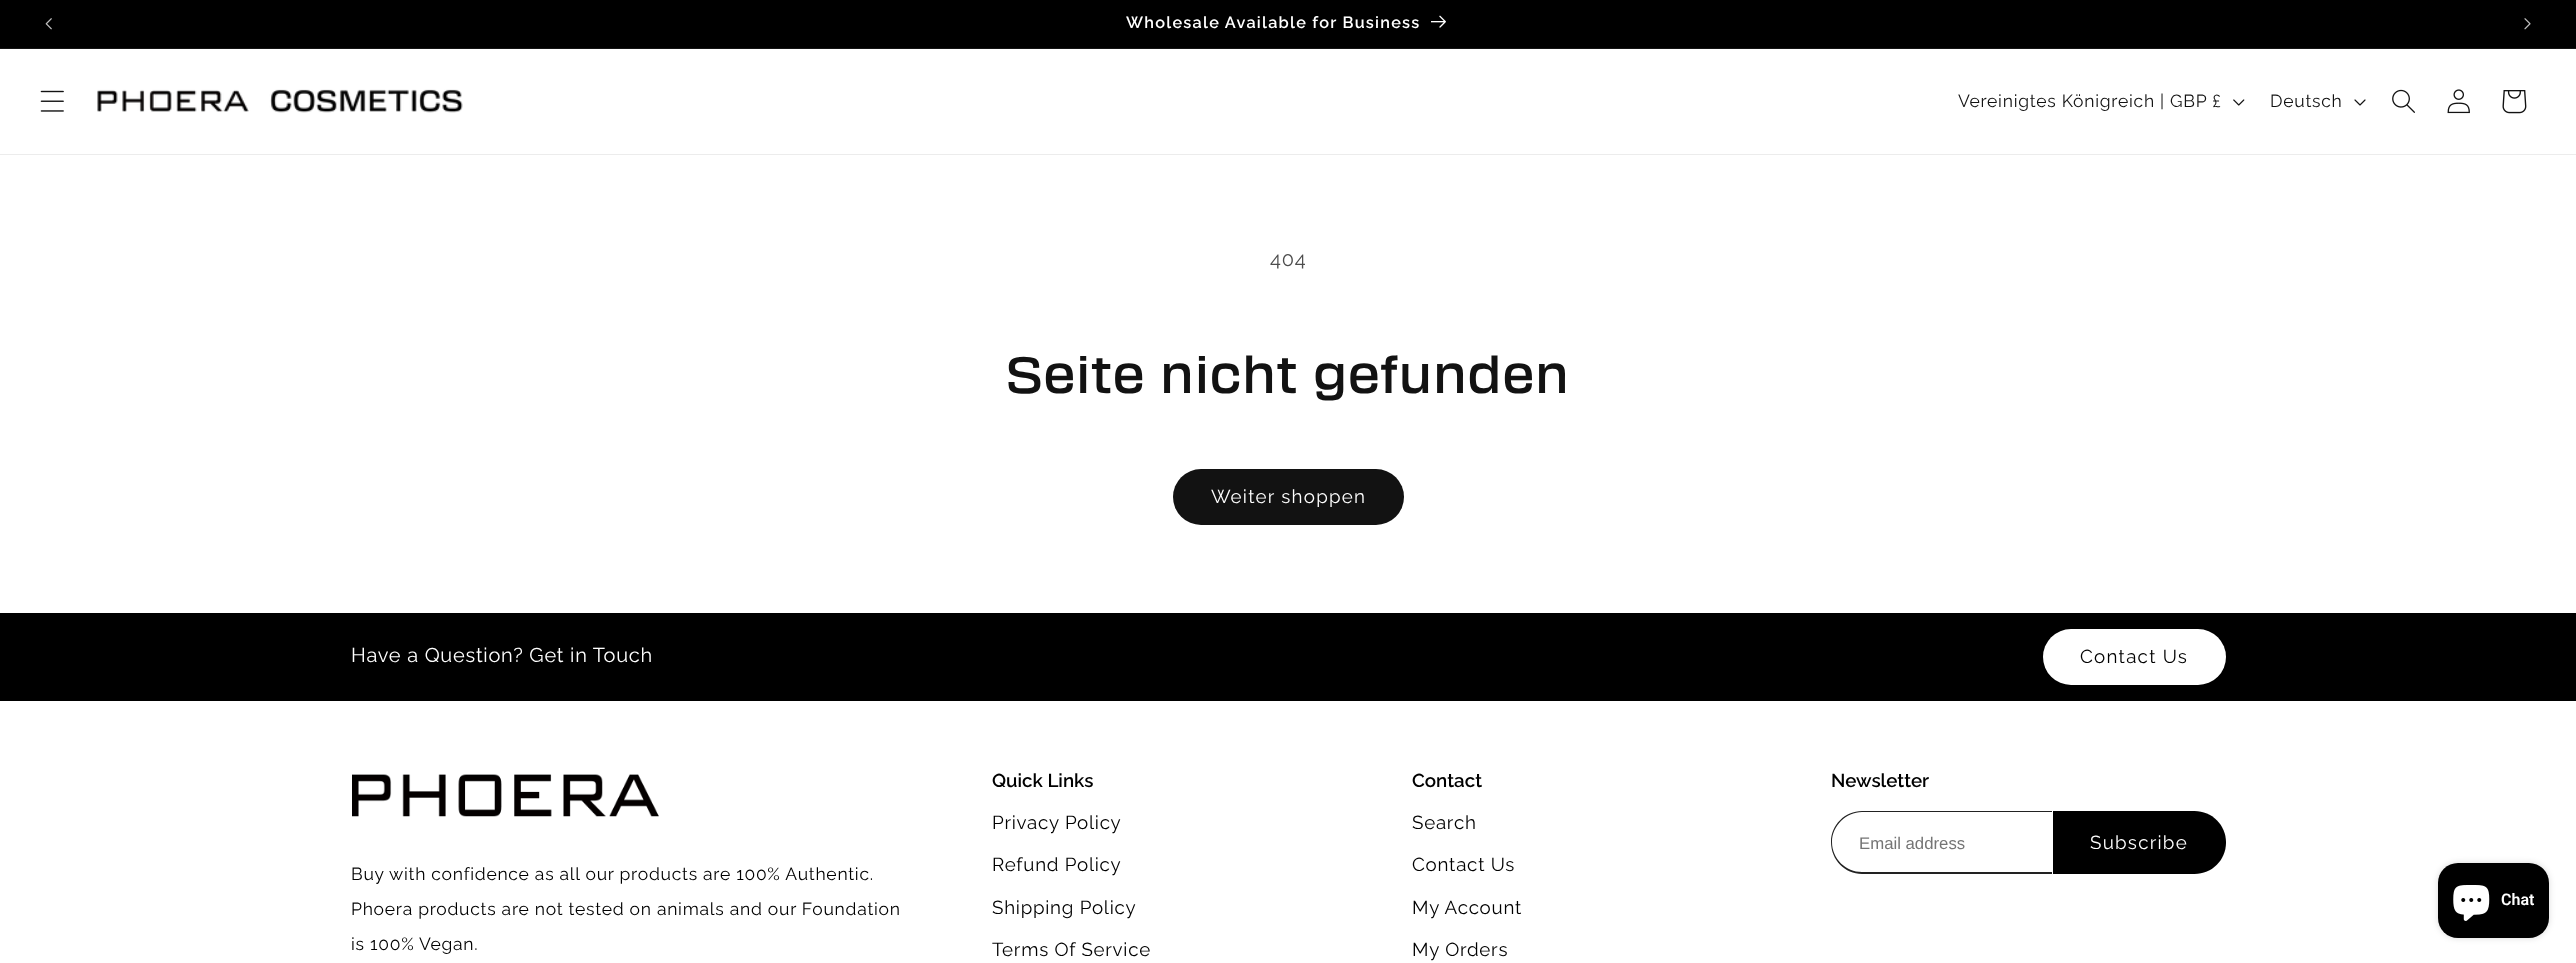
<svg xmlns="http://www.w3.org/2000/svg" width="2576" height="963" viewBox="0 0 2576 963">
  <rect width="100%" height="100%" fill="#fff"/>
  <path d="M0 0h2576v48H0z" fill="#000"/>
  <path d="M0 48h2576v1H0z" fill="#141414"/>
  <image x="45" y="18" width="7" height="12" href="img/1.png"/>
  <image x="1431" y="15" width="15" height="13" href="img/2.png"/>
  <image x="2524" y="18" width="7" height="12" href="img/3.png"/>
  <path d="M0 154h2576v1H0z" fill="#ececec"/>
  <image x="40" y="90" width="24" height="22" href="img/4.png"/>
  <image x="97" y="89" width="366" height="24" href="img/5.png"/>
  <image x="2233" y="99" width="12" height="7" href="img/6.png"/>
  <image x="2354" y="99" width="12" height="7" href="img/7.png"/>
  <image x="2392" y="89" width="23" height="24" href="img/8.png"/>
  <image x="2447" y="89" width="23" height="25" href="img/9.png"/>
  <image x="2502" y="90" width="25" height="24" href="img/10.png"/>
  <rect x="1173" y="469" width="231" height="56" rx="28" fill="#121212"/>
  <path d="M0 613h2576v88H0z" fill="#000"/>
  <rect x="2043" y="629" width="183" height="56" rx="28" fill="#fff"/>
  <path d="M1862 811H2052V874H1862C1845 874 1831 860 1831 842C1831 825 1845 811 1862 811ZM1862 812H2052V872H1862C1846 872 1832 859 1832 842C1832 826 1846 812 1862 812Z" fill="#222" fill-rule="evenodd"/>
  <path d="M2053 811H2194.5C2212 811 2226 825 2226 842.5C2226 860 2212 874 2194.5 874H2053Z" fill="#000"/>
  <image x="352" y="774" width="307" height="43" href="img/11.png"/>
  <rect x="2438" y="863" width="111" height="75" rx="20" fill="#00000026" filter="blur(3px)"/>
  <rect x="2438" y="863" width="111" height="75" rx="20" fill="#000"/>
  <image x="2453" y="885" width="37" height="36" href="img/12.png"/>
  <text x="1126" y="28" font-family="Raleway" font-size="16.25" font-weight="600" letter-spacing="1.25" fill="#fff">Wholesale Available for Business</text>
  <g font-family="Raleway" font-size="17.5" letter-spacing="0.75" fill="#121212">
    <text x="1958" y="107">Vereinigtes Königreich | GBP £</text>
    <text x="2270" y="107">Deutsch</text>
  </g>
  <text x="1270" y="266" font-family="Raleway" font-size="20" letter-spacing="0.75" fill="#4d4d4d">404</text>
  <text x="1006" y="393" font-family="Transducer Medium" font-size="50" font-weight="500" letter-spacing="0.75" fill="#121212">Seite nicht gefunden</text>
  <text x="1211" y="503" font-family="Raleway" font-size="18.75" letter-spacing="1.25" fill="#fff">Weiter shoppen</text>
  <text x="351" y="662" font-family="Raleway" font-size="20" letter-spacing="0.75" fill="#fff">Have a Question? Get in Touch</text>
  <text x="2080" y="663" font-family="Raleway" font-size="18.75" letter-spacing="1.25" fill="#000">Contact Us</text>
  <text x="992" y="787" font-family="Raleway" font-size="18.75" font-weight="600" fill="#000">Quick Links</text>
  <g font-family="Raleway" font-size="18.75" letter-spacing="0.75" fill="#000">
    <text x="992" y="829">Privacy Policy</text>
    <text x="992" y="871">Refund Policy</text>
    <text x="992" y="914">Shipping Policy</text>
    <text x="992" y="956">Terms Of Service</text>
  </g>
  <text x="1412" y="787" font-family="Raleway" font-size="18.75" font-weight="600" fill="#000">Contact</text>
  <g font-family="Raleway" font-size="18.75" letter-spacing="0.75" fill="#000">
    <text x="1412" y="829">Search</text>
    <text x="1412" y="871">Contact Us</text>
    <text x="1412" y="914">My Account</text>
    <text x="1412" y="956">My Orders</text>
  </g>
  <text x="1831" y="787" font-family="Raleway" font-size="18.75" font-weight="600" fill="#000">Newsletter</text>
  <text x="1859" y="849" font-family="Liberation Sans" font-size="16.75" fill="#757575">Email address</text>
  <text x="2090" y="849" font-family="Raleway" font-size="18.75" letter-spacing="1.25" fill="#fff">Subscribe</text>
  <g font-family="Raleway" font-size="17.5" letter-spacing="0.75" fill="#000">
    <text x="351" y="880">Buy with confidence as all our products are 100% Authentic.</text>
    <text x="351" y="915">Phoera products are not tested on animals and our Foundation</text>
    <text x="351" y="950">is 100% Vegan.</text>
  </g>
  <text x="2501" y="905" font-family="Roboto" font-size="16" font-weight="600" fill="#fff">Chat</text>
</svg>
